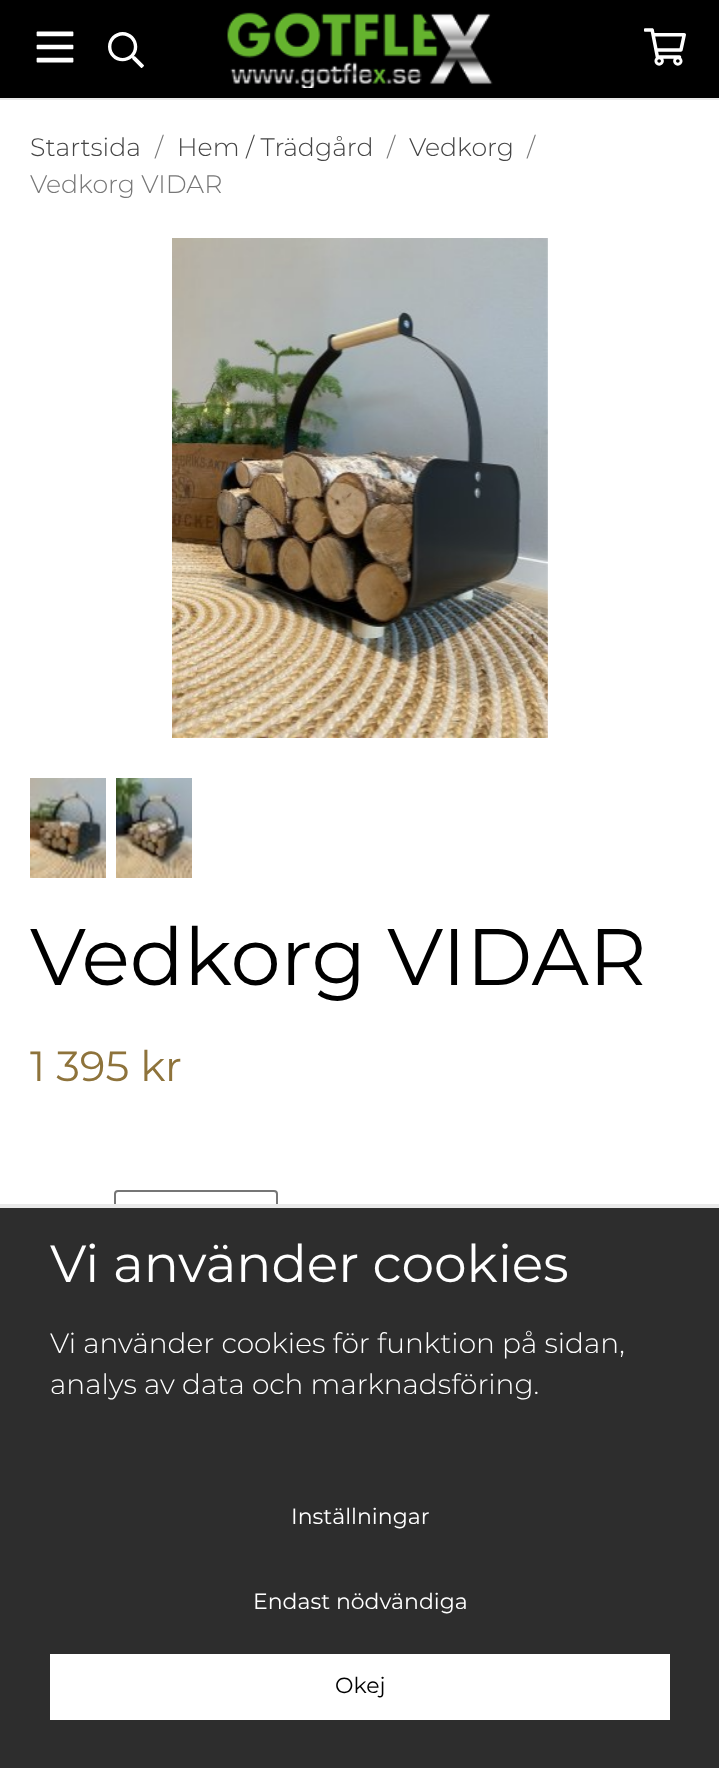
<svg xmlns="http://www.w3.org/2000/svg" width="719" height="1768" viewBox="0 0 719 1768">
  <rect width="100%" height="100%" fill="#fff"/>
  <path d="M0 0h719v98H0z" fill="#000"/>
  <path d="M0 98h719v2H0z" fill="#e9e9e9"/>
  <image x="36" y="31" width="38" height="32" href="img/1.png"/>
  <image x="108" y="32" width="36" height="36" href="img/2.png"/>
  <image x="227" y="12" width="266" height="76" href="img/3.png"/>
  <image x="644" y="28" width="42" height="38" href="img/4.png"/>
  <image x="172" y="238" width="376" height="500" href="img/5.png"/>
  <image x="30" y="778" width="76" height="100" href="img/6.png"/>
  <image x="116" y="778" width="76" height="100" href="img/7.png"/>
  <rect x="115" y="1191" width="162" height="38" rx="3" fill="none" stroke="#767676" stroke-width="2"/>
  <path d="M0 1208h719v560H0z" fill="#2d2d2d"/>
  <path d="M0 1204h719v4H0z" fill="#e9e9e9"/>
  <path d="M50 1654h620v66H50z" fill="#fff"/>
  <text x="30" y="156" font-family="Montserrat" font-size="25.25" font-weight="300" fill="#444">Startsida</text>
  <text x="155" y="156" font-family="Montserrat" font-size="25.25" font-weight="300" fill="#777">/</text>
  <text x="177" y="156" font-family="Montserrat" font-size="25.25" font-weight="300" fill="#444">Hem / Trädgård</text>
  <text x="387" y="156" font-family="Montserrat" font-size="25.25" font-weight="300" fill="#777">/</text>
  <text x="409" y="156" font-family="Montserrat" font-size="25.25" font-weight="300" fill="#444">Vedkorg</text>
  <g font-family="Montserrat" font-size="25.25" font-weight="300" fill="#777">
    <text x="527" y="156">/</text>
    <text x="30" y="193">Vedkorg VIDAR</text>
  </g>
  <text x="30" y="985" font-family="Montserrat" font-size="80" fill="#000">Vedkorg VIDAR</text>
  <text x="30" y="1081" font-family="Montserrat" font-size="42" fill="#8e733b">1 395 kr</text>
  <text x="50" y="1282" font-family="Montserrat" font-size="52" fill="#fff">Vi använder cookies</text>
  <g font-family="Montserrat" font-size="28" font-weight="300" fill="#fff">
    <text x="50" y="1353">Vi använder cookies för funktion på sidan,</text>
    <text x="50" y="1394">analys av data och marknadsföring.</text>
  </g>
  <g font-family="Montserrat" font-size="22" fill="#fff">
    <text x="291" y="1524">Inställningar</text>
    <text x="253" y="1609">Endast nödvändiga</text>
  </g>
  <text x="335" y="1693" font-family="Montserrat" font-size="22" fill="#000">Okej</text>
</svg>
